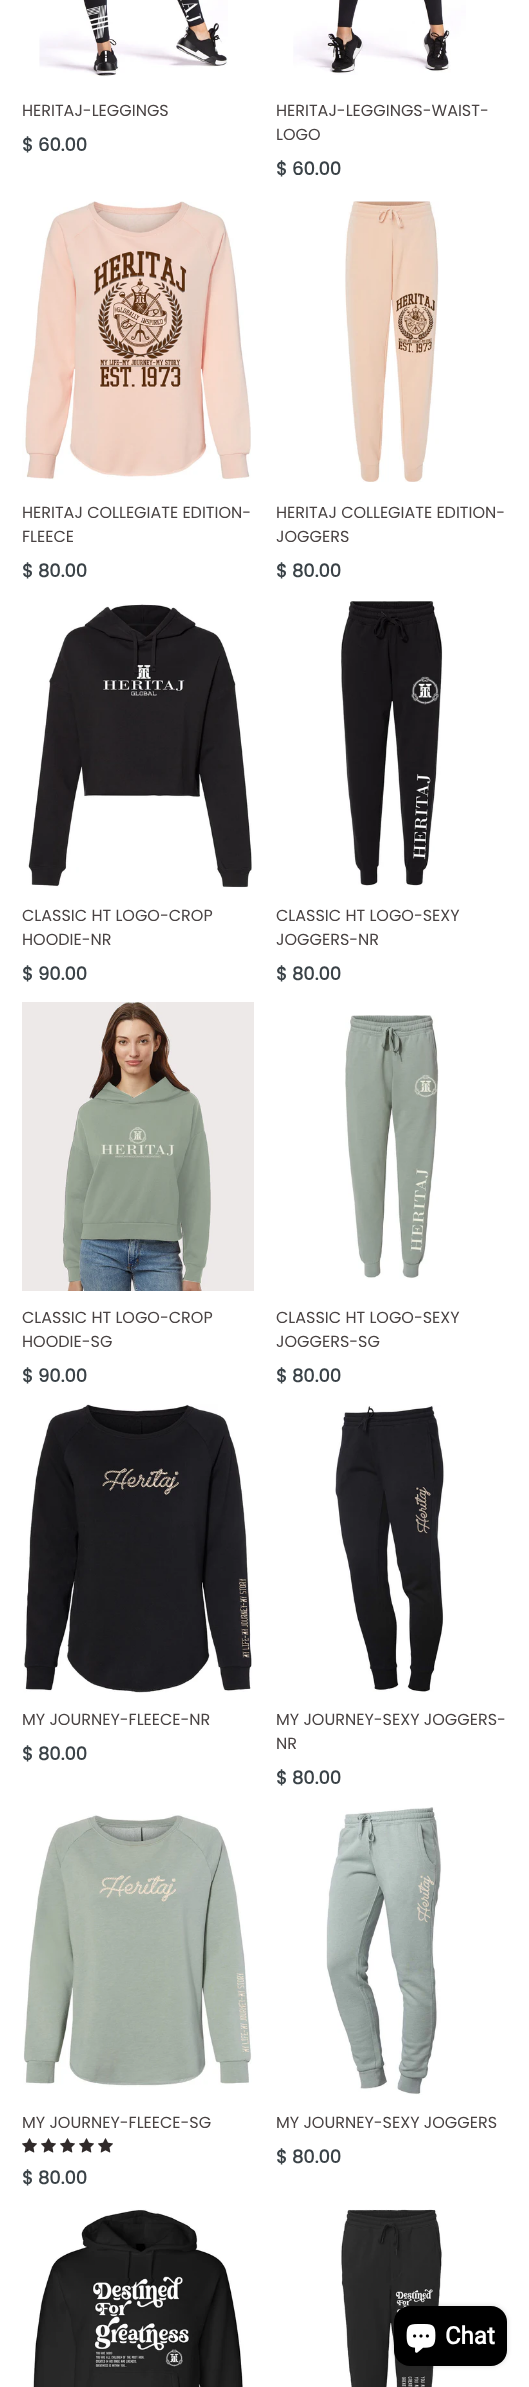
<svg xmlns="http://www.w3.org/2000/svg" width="529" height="2387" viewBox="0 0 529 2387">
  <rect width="100%" height="100%" fill="#fff"/>
  <image x="39" y="0" width="189" height="77" href="img/1.png"/>
  <image x="293" y="0" width="173" height="75" href="img/2.png"/>
  <image x="22" y="201" width="229" height="279" href="img/3.png"/>
  <image x="344" y="201" width="95" height="281" href="img/4.png"/>
  <image x="27" y="604" width="225" height="284" href="img/5.png"/>
  <image x="340" y="601" width="103" height="285" href="img/6.png"/>
  <image x="22" y="1002" width="232" height="289" href="img/7.png"/>
  <image x="345" y="1015" width="94" height="264" href="img/8.png"/>
  <image x="23" y="1404" width="229" height="289" href="img/9.png"/>
  <image x="335" y="1405" width="110" height="287" href="img/10.png"/>
  <image x="23" y="1814" width="229" height="273" href="img/11.png"/>
  <image x="22" y="2138" width="15" height="15" href="img/12.png"/>
  <image x="41" y="2138" width="15" height="15" href="img/12.png"/>
  <image x="60" y="2138" width="15" height="15" href="img/12.png"/>
  <image x="79" y="2138" width="15" height="15" href="img/12.png"/>
  <image x="98" y="2138" width="15" height="15" href="img/12.png"/>
  <image x="326" y="1807" width="116" height="288" href="img/13.png"/>
  <image x="32" y="2209" width="212" height="178" href="img/14.png"/>
  <image x="340" y="2209" width="103" height="178" href="img/15.png"/>
  <rect x="394" y="2306" width="113" height="60" rx="16" fill="#00000026" filter="blur(2.5px)"/>
  <rect x="394" y="2306" width="113" height="60" rx="16" fill="#000"/>
  <image x="406" y="2324" width="30" height="29" href="img/16.png"/>
  <text x="22" y="116" font-family="Poppins" font-size="16" fill="#494343">HERITAJ-LEGGINGS</text>
  <text x="22" y="151" font-family="Poppins" font-size="18" font-weight="bold" fill="#3a4247">$ 60.00</text>
  <g font-family="Poppins" font-size="16" fill="#494343">
    <text x="276" y="116">HERITAJ-LEGGINGS-WAIST-</text>
    <text x="276" y="140">LOGO</text>
  </g>
  <text x="276" y="175" font-family="Poppins" font-size="18" font-weight="bold" fill="#3a4247">$ 60.00</text>
  <g font-family="Poppins" font-size="16" fill="#494343">
    <text x="22" y="518">HERITAJ COLLEGIATE EDITION-</text>
    <text x="22" y="542">FLEECE</text>
  </g>
  <text x="22" y="577" font-family="Poppins" font-size="18" font-weight="bold" fill="#3a4247">$ 80.00</text>
  <g font-family="Poppins" font-size="16" fill="#494343">
    <text x="276" y="518">HERITAJ COLLEGIATE EDITION-</text>
    <text x="276" y="542">JOGGERS</text>
  </g>
  <text x="276" y="577" font-family="Poppins" font-size="18" font-weight="bold" fill="#3a4247">$ 80.00</text>
  <g font-family="Poppins" font-size="16" fill="#494343">
    <text x="22" y="921">CLASSIC HT LOGO-CROP</text>
    <text x="22" y="945">HOODIE-NR</text>
  </g>
  <text x="22" y="980" font-family="Poppins" font-size="18" font-weight="bold" fill="#3a4247">$ 90.00</text>
  <g font-family="Poppins" font-size="16" fill="#494343">
    <text x="276" y="921">CLASSIC HT LOGO-SEXY</text>
    <text x="276" y="945">JOGGERS-NR</text>
  </g>
  <text x="276" y="980" font-family="Poppins" font-size="18" font-weight="bold" fill="#3a4247">$ 80.00</text>
  <g font-family="Poppins" font-size="16" fill="#494343">
    <text x="22" y="1323">CLASSIC HT LOGO-CROP</text>
    <text x="22" y="1347">HOODIE-SG</text>
  </g>
  <text x="22" y="1382" font-family="Poppins" font-size="18" font-weight="bold" fill="#3a4247">$ 90.00</text>
  <g font-family="Poppins" font-size="16" fill="#494343">
    <text x="276" y="1323">CLASSIC HT LOGO-SEXY</text>
    <text x="276" y="1347">JOGGERS-SG</text>
  </g>
  <text x="276" y="1382" font-family="Poppins" font-size="18" font-weight="bold" fill="#3a4247">$ 80.00</text>
  <text x="22" y="1725" font-family="Poppins" font-size="16" fill="#494343">MY JOURNEY-FLEECE-NR</text>
  <text x="22" y="1760" font-family="Poppins" font-size="18" font-weight="bold" fill="#3a4247">$ 80.00</text>
  <g font-family="Poppins" font-size="16" fill="#494343">
    <text x="276" y="1725">MY JOURNEY-SEXY JOGGERS-</text>
    <text x="276" y="1749">NR</text>
  </g>
  <text x="276" y="1784" font-family="Poppins" font-size="18" font-weight="bold" fill="#3a4247">$ 80.00</text>
  <text x="22" y="2128" font-family="Poppins" font-size="16" fill="#494343">MY JOURNEY-FLEECE-SG</text>
  <text x="22" y="2184" font-family="Poppins" font-size="18" font-weight="bold" fill="#3a4247">$ 80.00</text>
  <text x="276" y="2128" font-family="Poppins" font-size="16" fill="#494343">MY JOURNEY-SEXY JOGGERS</text>
  <text x="276" y="2163" font-family="Poppins" font-size="18" font-weight="bold" fill="#3a4247">$ 80.00</text>
  <text x="445" y="2344" font-family="Roboto" font-size="24" font-weight="bold" fill="#fff">Chat</text>
</svg>
